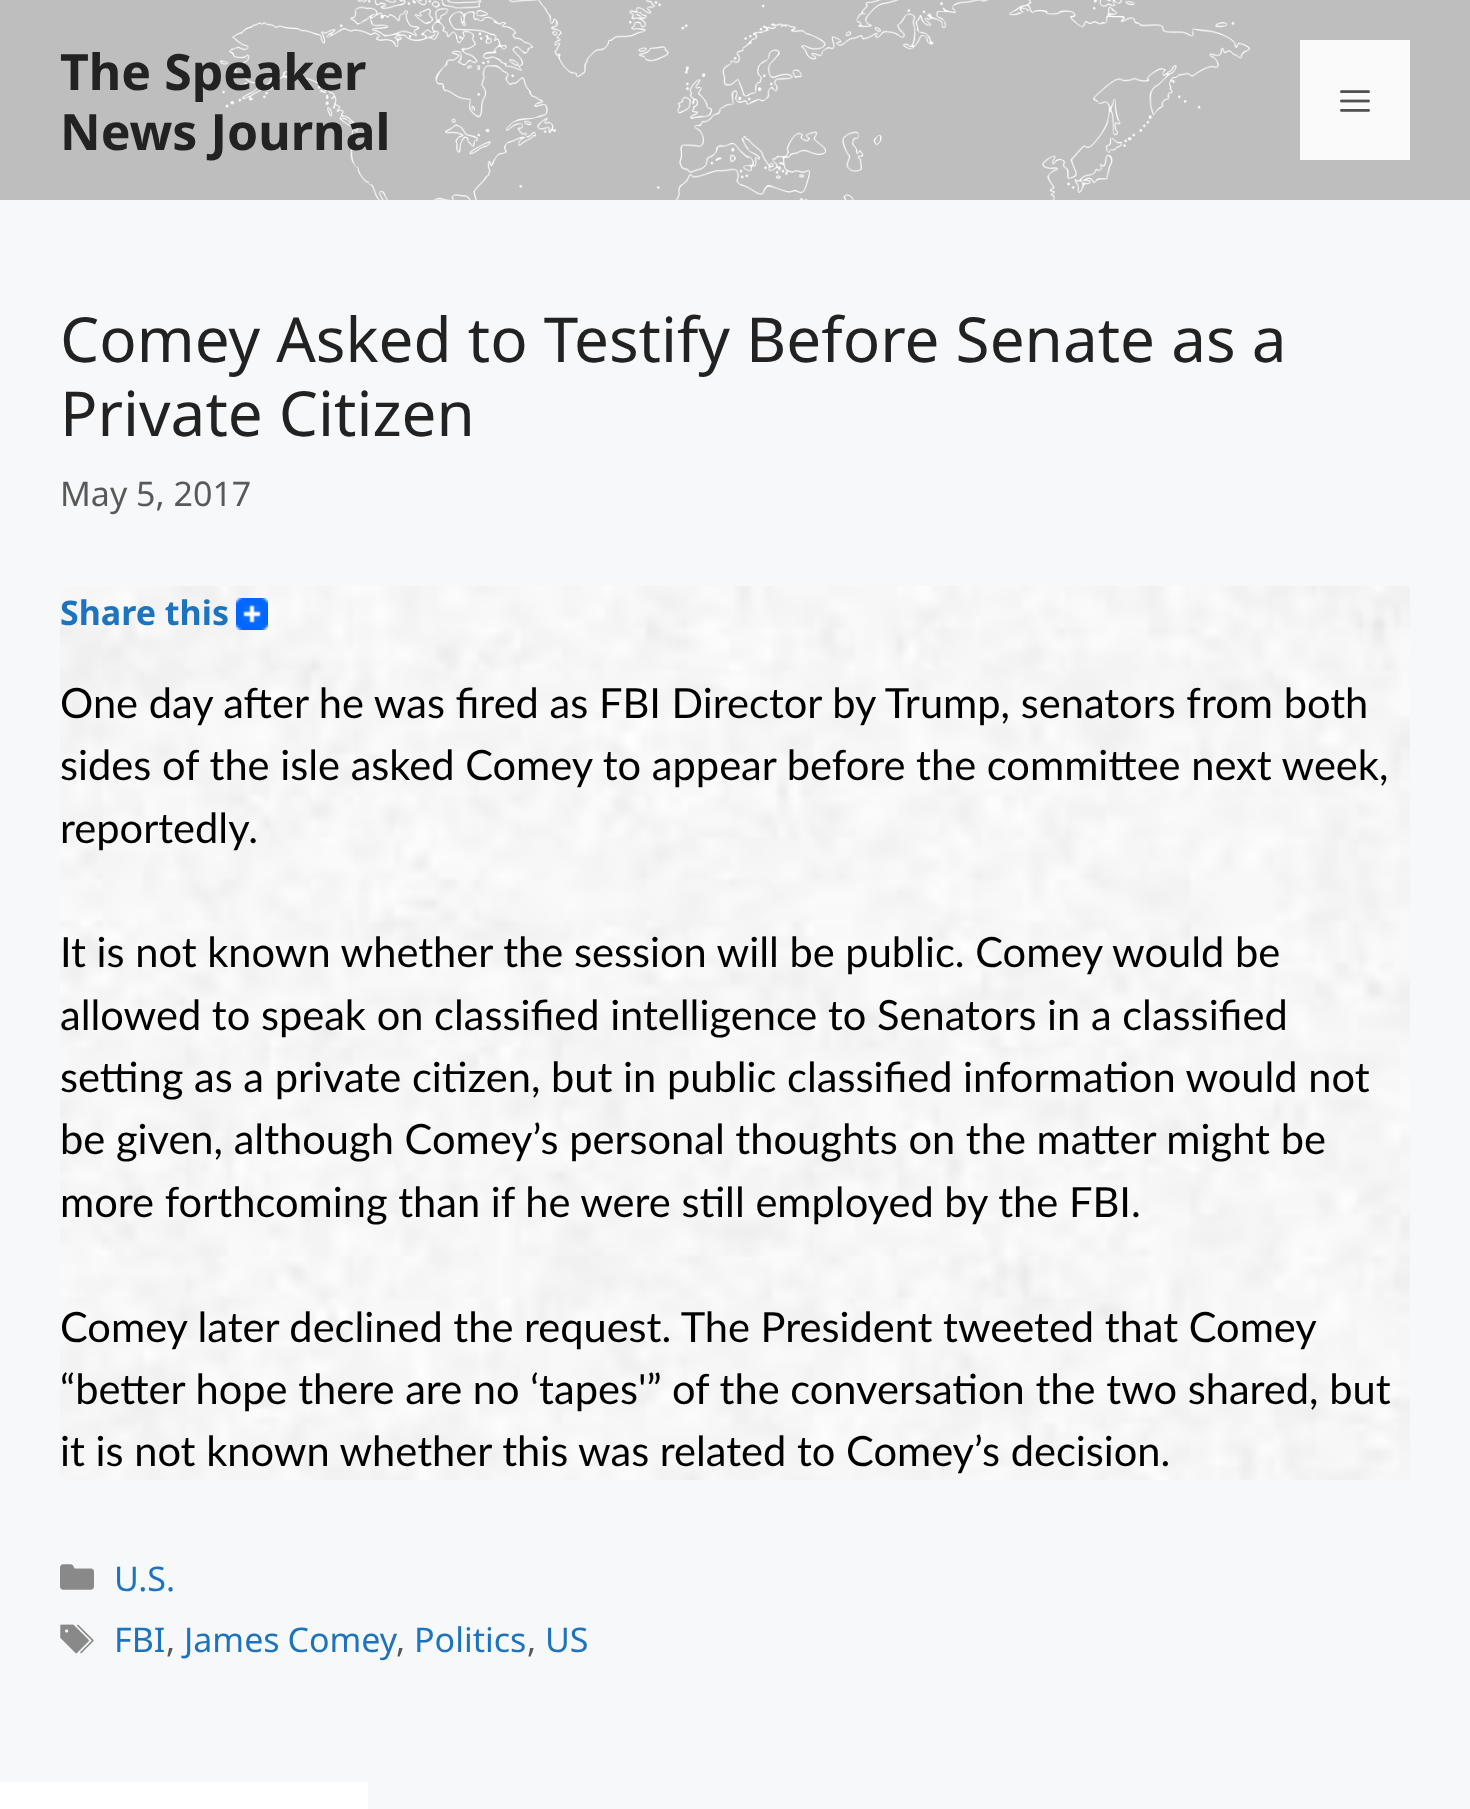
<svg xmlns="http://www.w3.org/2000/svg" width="1470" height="1809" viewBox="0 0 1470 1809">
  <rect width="100%" height="100%" fill="#f7f8f9"/>
  <path d="M0 0h1470v200H0z" fill="#bebebe"/>
  <image x="220" y="0" width="1030" height="200" href="img/1.png"/>
  <path d="M1300 40h110v120H1300z" fill="#fafafa"/>
  <image x="1340" y="90" width="30" height="22" href="img/2.png"/>
  <image x="60" y="586" width="1350" height="894" href="img/3.png"/>
  <image x="236" y="598" width="32" height="32" href="img/4.png"/>
  <image x="60" y="1564" width="34" height="26" href="img/5.png"/>
  <image x="60" y="1624" width="34" height="30" href="img/6.png"/>
  <path d="M0 1782h368v27H0z" fill="#fff"/>
  <g font-family="Noto Sans" font-size="50" font-weight="bold" fill="#222">
    <text x="60" y="90">The Speaker</text>
    <text x="60" y="150">News Journal</text>
  </g>
  <g font-family="Noto Sans" font-size="62" fill="#222">
    <text x="60" y="362">Comey Asked to Testify Before Senate as a</text>
    <text x="60" y="436">Private Citizen</text>
  </g>
  <text x="60" y="506" font-family="Noto Sans" font-size="34" fill="#595959">May 5, 2017</text>
  <text x="60" y="625" font-family="Noto Sans" font-size="34" font-weight="bold" fill="#1e73be">Share this</text>
  <g font-family="Lato" font-size="41.6" fill="#000">
    <text x="60" y="718">One day after he was fired as FBI Director by Trump, senators from both</text>
    <text x="60" y="780">sides of the isle asked Comey to appear before the committee next week,</text>
    <text x="60" y="843">reportedly.</text>
    <text x="60" y="967">It is not known whether the session will be public. Comey would be</text>
    <text x="60" y="1030">allowed to speak on classified intelligence to Senators in a classified</text>
    <text x="60" y="1092">setting as a private citizen, but in public classified information would not</text>
    <text x="60" y="1154">be given, although Comey’s personal thoughts on the matter might be</text>
    <text x="60" y="1217">more forthcoming than if he were still employed by the FBI.</text>
    <text x="60" y="1342" word-spacing="-0.1">Comey later declined the request. The President tweeted that Comey</text>
    <text x="60" y="1404">“better hope there are no ‘tapes'” of the conversation the two shared, but</text>
    <text x="60" y="1466">it is not known whether this was related to Comey’s decision.</text>
  </g>
  <g font-family="Noto Sans" font-size="34" fill="#1e73be">
    <text x="114" y="1591">U.S.</text>
    <text x="114" y="1652">FBI</text>
  </g>
  <text x="166" y="1652" font-family="Noto Sans" font-size="34" fill="#595959">,</text>
  <text x="184" y="1652" word-spacing="-1" font-family="Noto Sans" font-size="34" fill="#1e73be">James Comey</text>
  <text x="396" y="1652" font-family="Noto Sans" font-size="34" fill="#595959">,</text>
  <text x="414" y="1652" font-family="Noto Sans" font-size="34" fill="#1e73be">Politics</text>
  <text x="527" y="1652" font-family="Noto Sans" font-size="34" fill="#595959">,</text>
  <text x="545" y="1652" font-family="Noto Sans" font-size="34" fill="#1e73be">US</text>
</svg>
